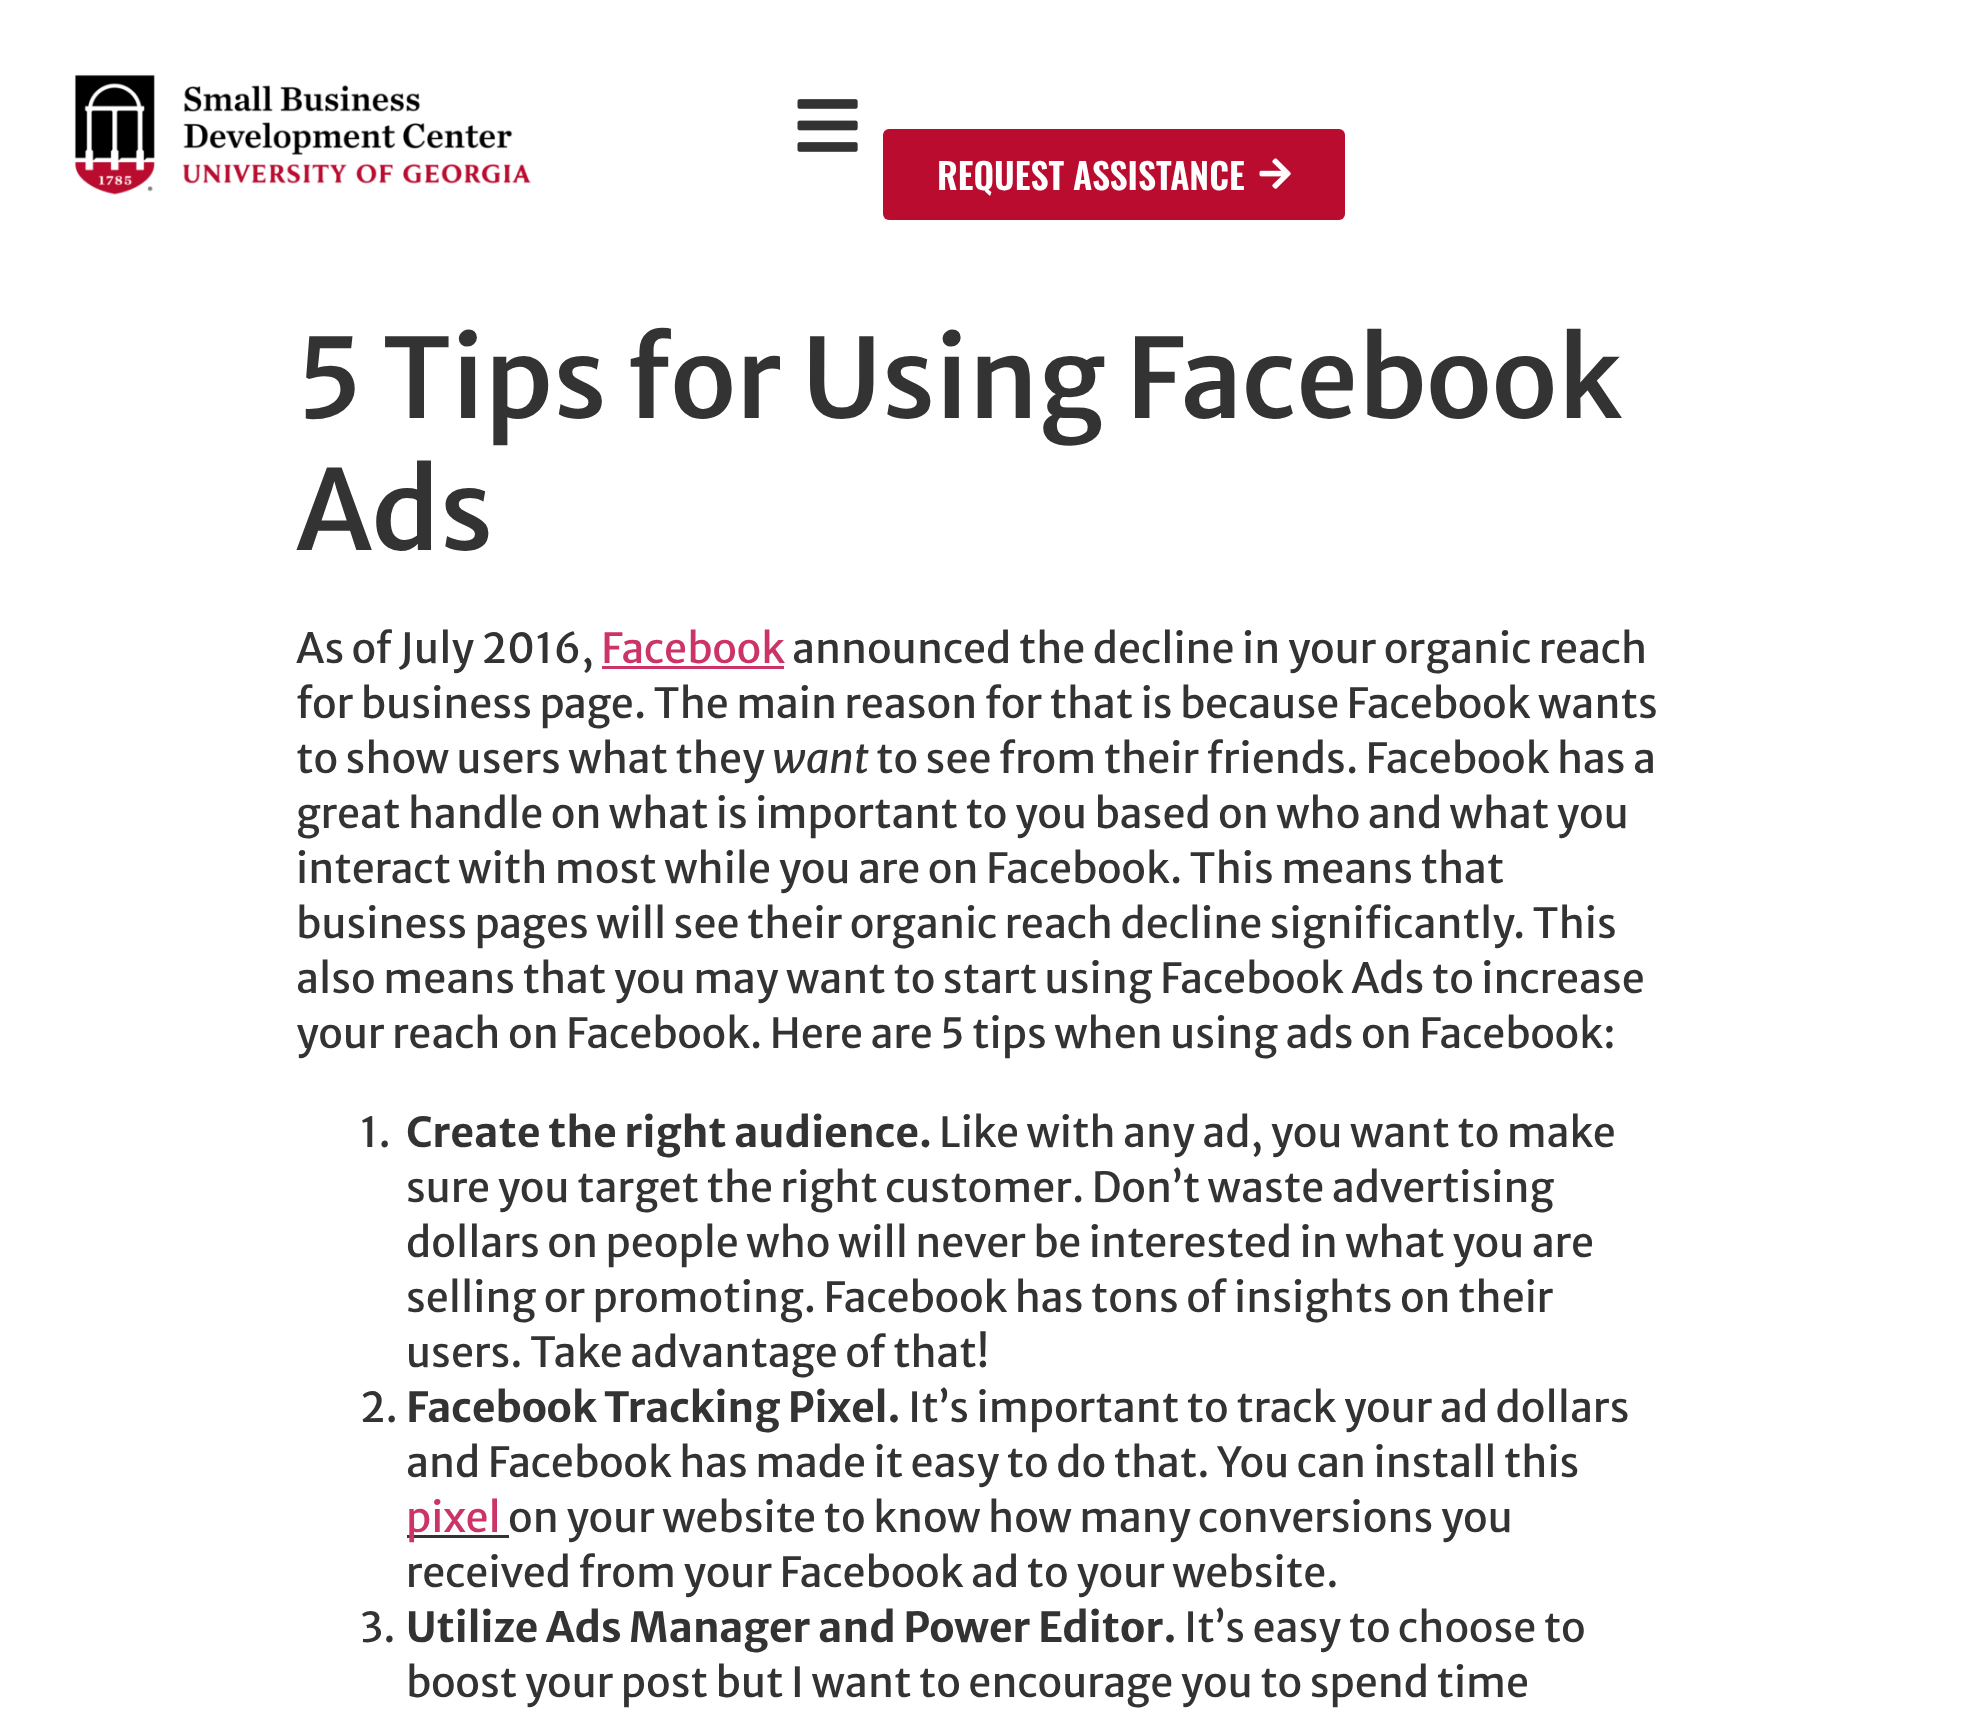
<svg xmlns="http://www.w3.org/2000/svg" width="1965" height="1733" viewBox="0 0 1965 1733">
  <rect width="100%" height="100%" fill="#fff"/>
  <image x="74" y="74" width="457" height="121" href="img/1.png"/>
  <image x="797" y="99" width="61" height="53" href="img/2.png"/>
  <rect x="883" y="129" width="462" height="91" rx="6" fill="#ba0c2f"/>
  <image x="1259" y="158" width="32" height="31" href="img/3.png"/>
  <path d="M602 666h182v3H602z" fill="#c36"/>
  <path d="M407 1535h102v3H407z" fill="#333"/>
  <text x="937" y="190" font-family="Oswald" font-size="35.75" font-weight="600" fill="#fff">REQUEST ASSISTANCE</text>
  <g font-family="Merriweather Sans" font-size="110" font-weight="500" fill="#333">
    <text x="296" y="418">5 Tips for Using Facebook</text>
    <text x="296" y="550">Ads</text>
  </g>
  <text x="296" y="663" font-family="Merriweather Sans" font-size="41.25" fill="#333">As of July 2016,</text>
  <text x="601" y="663" font-family="Merriweather Sans" font-size="41.25" fill="#c36">Facebook</text>
  <g font-family="Merriweather Sans" font-size="41.25" fill="#333">
    <text x="792" y="663">announced the decline in your organic reach</text>
    <text x="296" y="718">for business page. The main reason for that is because Facebook wants</text>
    <text x="296" y="773">to show users what they</text>
  </g>
  <text x="772" y="773" font-family="Merriweather Sans" font-size="41.25" font-style="italic" fill="#333">want</text>
  <g font-family="Merriweather Sans" font-size="41.25" fill="#333">
    <text x="876" y="773">to see from their friends. Facebook has a</text>
    <text x="296" y="828">great handle on what is important to you based on who and what you</text>
    <text x="296" y="883">interact with most while you are on Facebook. This means that</text>
    <text x="296" y="938">business pages will see their organic reach decline significantly. This</text>
    <text x="296" y="993">also means that you may want to start using Facebook Ads to increase</text>
    <text x="296" y="1048">your reach on Facebook. Here are 5 tips when using ads on Facebook:</text>
    <text x="360" y="1147">1.</text>
  </g>
  <text x="406" y="1147" font-family="Merriweather Sans" font-size="41.25" font-weight="bold" fill="#333">Create the right audience.</text>
  <g font-family="Merriweather Sans" font-size="41.25" fill="#333">
    <text x="939" y="1147">Like with any ad, you want to make</text>
    <text x="406" y="1202">sure you target the right customer. Don’t waste advertising</text>
    <text x="406" y="1257">dollars on people who will never be interested in what you are</text>
    <text x="406" y="1312">selling or promoting. Facebook has tons of insights on their</text>
    <text x="406" y="1367">users. Take advantage of that!</text>
    <text x="360" y="1422">2.</text>
  </g>
  <text x="406" y="1422" font-family="Merriweather Sans" font-size="41.25" font-weight="bold" fill="#333">Facebook Tracking Pixel.</text>
  <g font-family="Merriweather Sans" font-size="41.25" fill="#333">
    <text x="908" y="1422">It’s important to track your ad dollars</text>
    <text x="406" y="1477">and Facebook has made it easy to do that. You can install this</text>
  </g>
  <text x="406" y="1532" font-family="Merriweather Sans" font-size="41.25" fill="#c36">pixel</text>
  <g font-family="Merriweather Sans" font-size="41.25" fill="#333">
    <text x="508" y="1532">on your website to know how many conversions you</text>
    <text x="406" y="1587">received from your Facebook ad to your website.</text>
    <text x="360" y="1642">3.</text>
  </g>
  <text x="406" y="1642" font-family="Merriweather Sans" font-size="41.25" font-weight="bold" fill="#333">Utilize Ads Manager and Power Editor.</text>
  <g font-family="Merriweather Sans" font-size="41.25" fill="#333">
    <text x="1184" y="1642">It’s easy to choose to</text>
    <text x="406" y="1697">boost your post but I want to encourage you to spend time</text>
  </g>
</svg>
